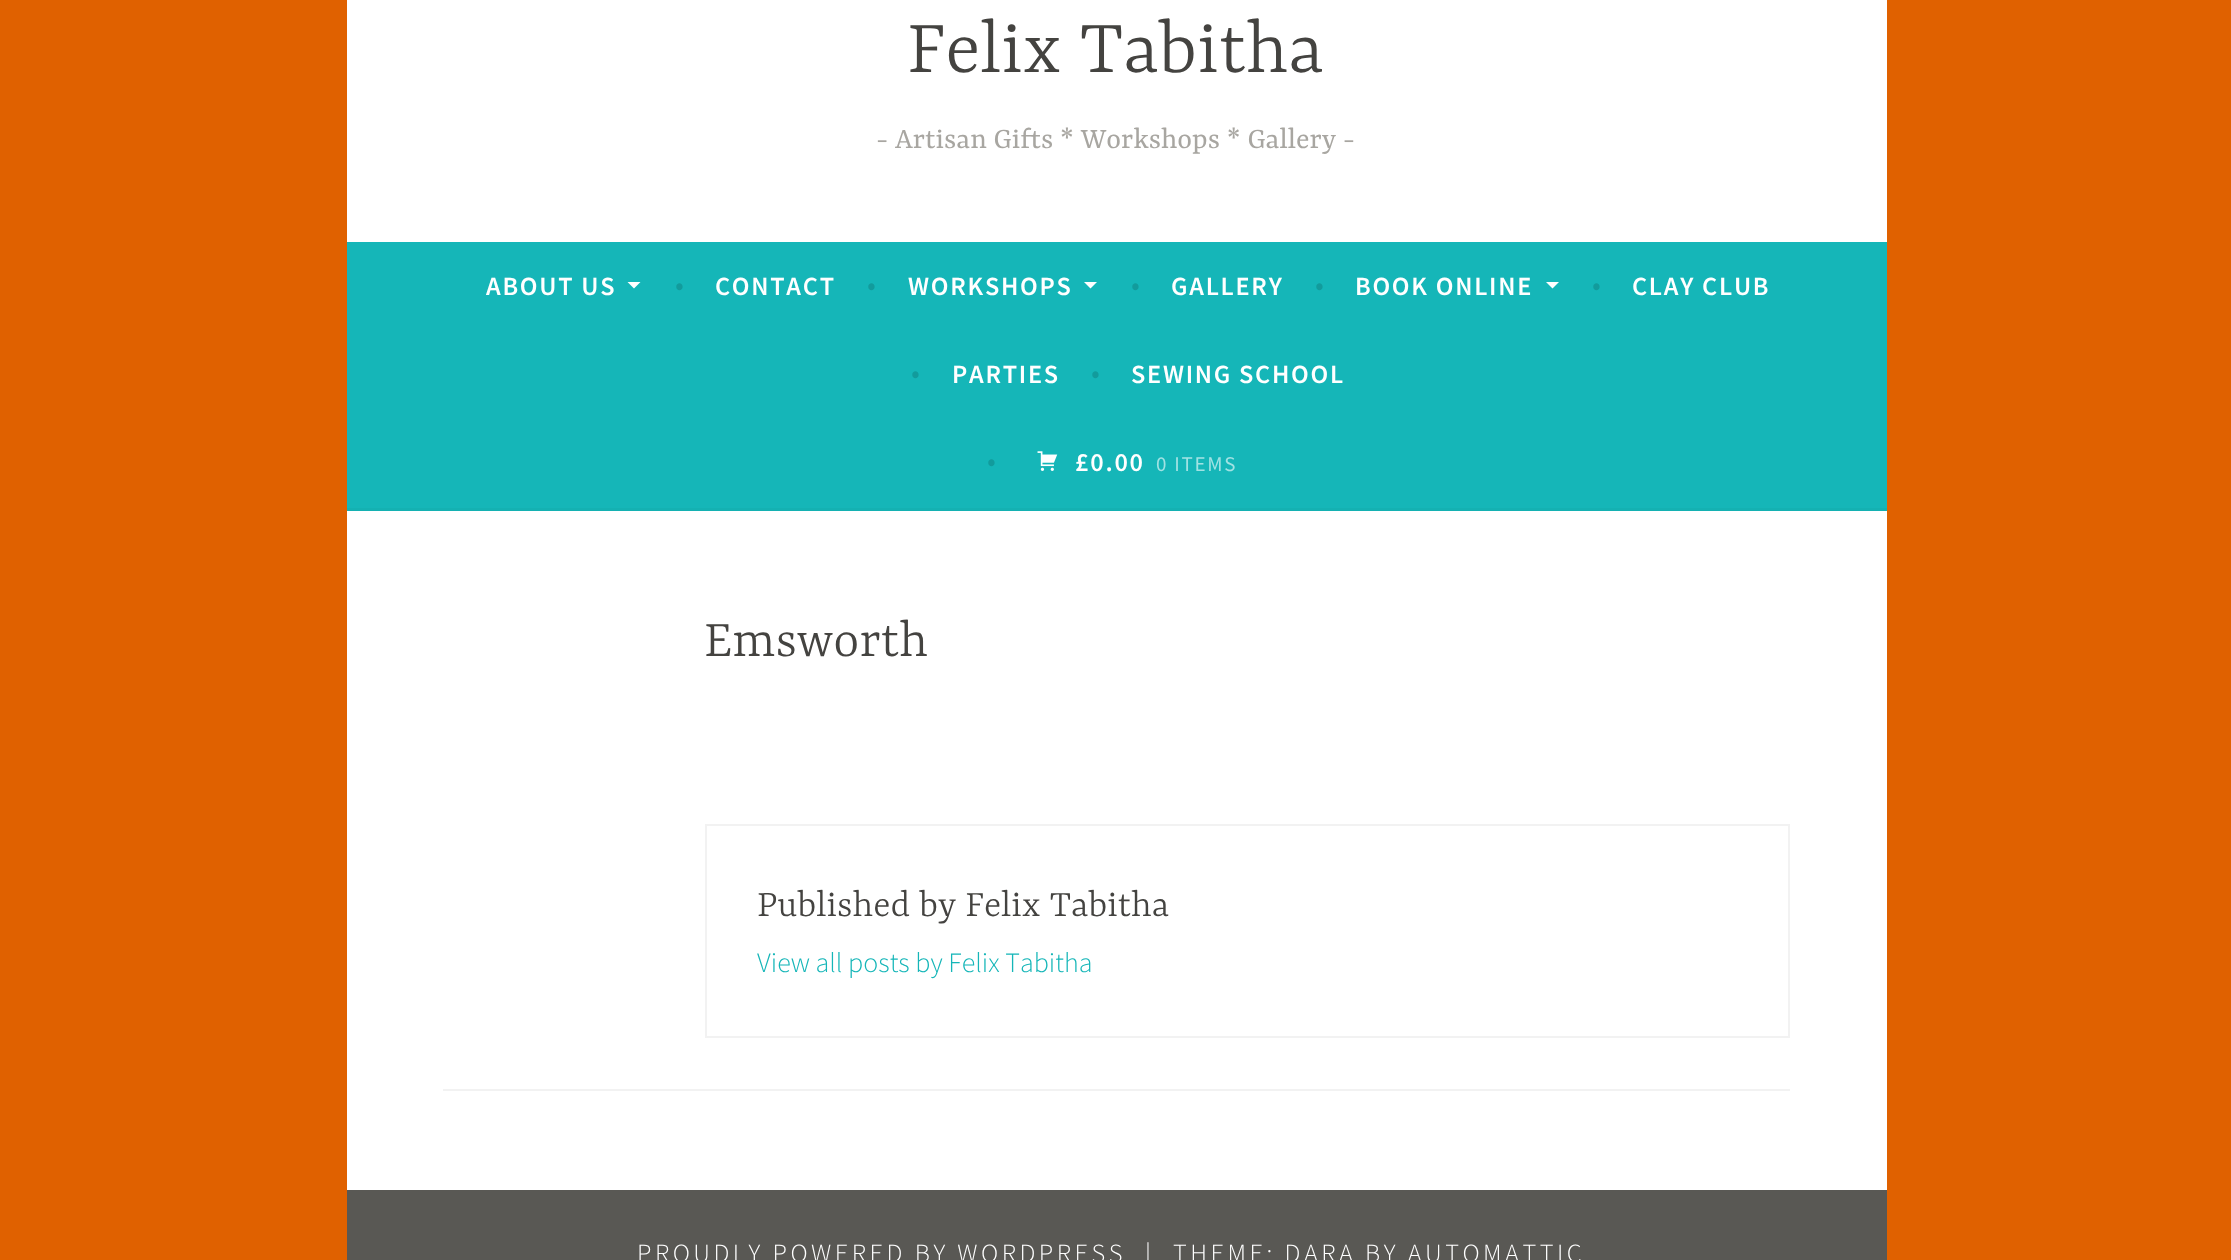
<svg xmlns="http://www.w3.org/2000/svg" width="2231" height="1260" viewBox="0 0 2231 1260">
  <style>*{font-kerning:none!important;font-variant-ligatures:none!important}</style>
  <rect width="100%" height="100%" fill="#e06100"/>
  <path d="M347 0h1540v242H347z" fill="#fff"/>
  <path d="M347 242h1540v266H347z" fill="#15b6b8"/>
  <path d="M347 508h1540v3H347z" fill="#14b1b2"/>
  <path d="M627.5 282H640.5L634 288.5Z" fill="#fff"/>
  <path d="M1084 282H1097L1090.5 288.5Z" fill="#fff"/>
  <path d="M1546 282H1559L1552.5 288.5Z" fill="#fff"/>
  <image x="1037" y="451" width="21" height="20" href="img/1.png"/>
  <path d="M347 511h1540v679H347z" fill="#fff"/>
  <path d="M706 825h1083v212H706z" fill="none" stroke="#f2f2f2" stroke-width="2"/>
  <path d="M443 1089h1347v2H443z" fill="#f2f2f2"/>
  <path d="M347 1190h1540v70H347z" fill="#595854"/>
  <text x="907" y="72" font-family="Yrsa" font-size="82.25" font-weight="300" fill="#444340">Felix Tabitha</text>
  <text x="876" y="148" font-family="Yrsa" font-size="31.5" fill="#a8a6a1">- Artisan Gifts * Workshops * Gallery -</text>
  <text x="486" y="295" font-family="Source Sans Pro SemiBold" font-size="26.25" font-weight="600" letter-spacing="1.75" fill="#fff">ABOUT US</text>
  <text x="675" y="295" font-family="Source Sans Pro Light" font-size="31.5" font-weight="300" fill="#129b9c">•</text>
  <text x="715" y="295" font-family="Source Sans Pro SemiBold" font-size="26.25" font-weight="600" letter-spacing="1.75" fill="#fff">CONTACT</text>
  <text x="867" y="295" font-family="Source Sans Pro Light" font-size="31.5" font-weight="300" fill="#129b9c">•</text>
  <text x="908" y="295" font-family="Source Sans Pro SemiBold" font-size="26.25" font-weight="600" letter-spacing="1.75" fill="#fff">WORKSHOPS</text>
  <text x="1131" y="295" font-family="Source Sans Pro Light" font-size="31.5" font-weight="300" fill="#129b9c">•</text>
  <text x="1171" y="295" font-family="Source Sans Pro SemiBold" font-size="26.25" font-weight="600" letter-spacing="1.75" fill="#fff">GALLERY</text>
  <text x="1315" y="295" font-family="Source Sans Pro Light" font-size="31.5" font-weight="300" fill="#129b9c">•</text>
  <text x="1355" y="295" font-family="Source Sans Pro SemiBold" font-size="26.25" font-weight="600" letter-spacing="1.75" fill="#fff">BOOK ONLINE</text>
  <text x="1592" y="295" font-family="Source Sans Pro Light" font-size="31.5" font-weight="300" fill="#129b9c">•</text>
  <text x="1632" y="295" font-family="Source Sans Pro SemiBold" font-size="26.25" font-weight="600" letter-spacing="1.75" fill="#fff">CLAY CLUB</text>
  <text x="911" y="383" font-family="Source Sans Pro Light" font-size="31.5" font-weight="300" fill="#129b9c">•</text>
  <text x="952" y="383" font-family="Source Sans Pro SemiBold" font-size="26.25" font-weight="600" letter-spacing="1.75" fill="#fff">PARTIES</text>
  <text x="1091" y="383" font-family="Source Sans Pro Light" font-size="31.5" font-weight="300" fill="#129b9c">•</text>
  <text x="1131" y="383" font-family="Source Sans Pro SemiBold" font-size="26.25" font-weight="600" letter-spacing="1.75" fill="#fff">SEWING SCHOOL</text>
  <text x="987" y="471" font-family="Source Sans Pro Light" font-size="31.5" font-weight="300" fill="#129b9c">•</text>
  <text x="1075" y="471" font-family="Source Sans Pro SemiBold" font-size="26.25" font-weight="600" letter-spacing="1.75" fill="#fff">£0.00</text>
  <text x="1156" y="471" font-family="Source Sans Pro" font-size="21" letter-spacing="1.75" fill="#a1e2e3">0 ITEMS</text>
  <text x="704" y="656" font-family="Yrsa" font-size="56" font-weight="300" fill="#444340">Emsworth</text>
  <text x="757" y="916" font-family="Yrsa" font-size="40.25" font-weight="300" fill="#444340">Published by Felix Tabitha</text>
  <text x="757" y="972" font-family="Source Sans Pro Light" font-size="28" font-weight="300" fill="#15b6b8">View all posts by Felix Tabitha</text>
  <g font-family="Source Sans Pro Light" font-size="26.25" font-weight="300" letter-spacing="3.5" fill="#fff">
    <text x="637" y="1262">PROUDLY POWERED BY WORDPRESS</text>
    <text x="1145" y="1262">|</text>
    <text x="1173" y="1262">THEME: DARA BY AUTOMATTIC</text>
  </g>
</svg>
